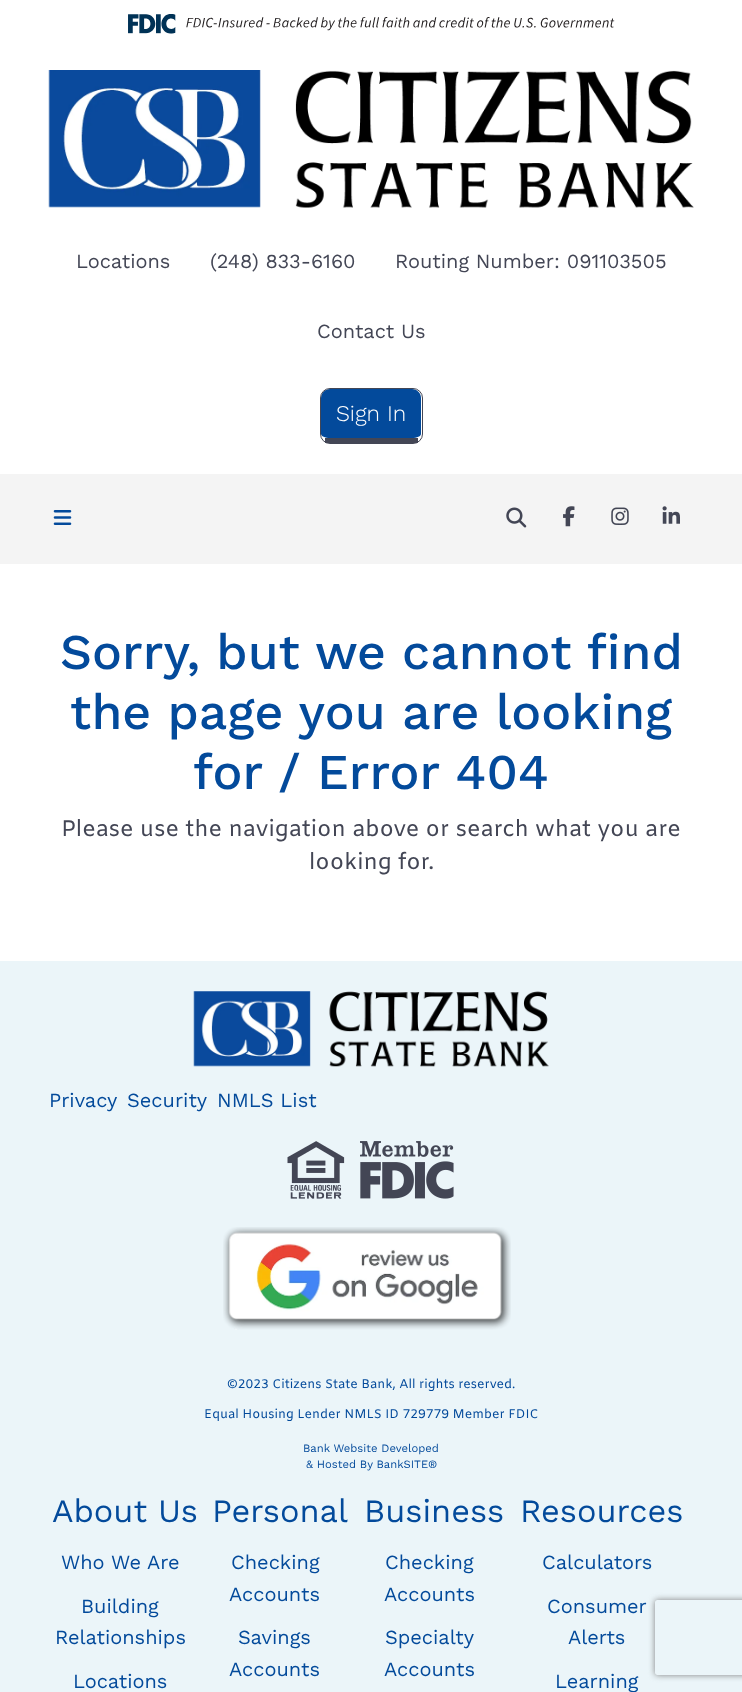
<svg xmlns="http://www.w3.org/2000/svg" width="742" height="1692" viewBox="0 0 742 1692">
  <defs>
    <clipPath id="clip1"><path d="M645 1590H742V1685H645ZM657.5 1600H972.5C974 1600 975 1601 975 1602.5V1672.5C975 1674 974 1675 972.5 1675H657.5C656 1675 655 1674 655 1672.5V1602.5C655 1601 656 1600 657.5 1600Z" clip-rule="evenodd"/></clipPath>
  </defs>
  <rect width="100%" height="100%" fill="#fff"/>
  <image x="128" y="14" width="487" height="20" href="img/1.png"/>
  <image x="48" y="70" width="646" height="138" href="img/2.png"/>
  <path d="M330 389H412C417 389 421 393 421 398V434C421 436 417 438 412 438H330C325 438 321 436 321 434V398C321 393 325 389 330 389Z" fill="#034a9b"/>
  <rect x="320.5" y="388.5" width="102" height="55" rx="9.5" fill="none" stroke="#434655"/>
  <path d="M325 438h93v5H325z" fill="#434655"/>
  <path d="M0 474h742v90H0z" fill="#f4f4f4"/>
  <image x="53" y="510" width="19" height="15" href="img/3.png"/>
  <image x="506" y="507" width="21" height="21" href="img/4.png"/>
  <image x="563" y="506" width="12" height="21" href="img/5.png"/>
  <image x="611" y="507" width="18" height="18" href="img/6.png"/>
  <image x="662" y="506" width="18" height="18" href="img/7.png"/>
  <path d="M0 961h742v731H0z" fill="#ebf5f9"/>
  <image x="193" y="991" width="356" height="76" href="img/8.png"/>
  <image x="287" y="1141" width="58" height="58" href="img/9.png"/>
  <image x="360" y="1141" width="94" height="58" href="img/10.png"/>
  <image x="223" y="1227" width="288" height="103" href="img/11.png"/>
  <g clip-path="url(#clip1)">
    <rect x="655" y="1600" width="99" height="75" rx="2.5" fill="#808080" filter="blur(3px)"/>
  </g>
  <g font-family="Work Sans" font-size="20" fill="#434655">
    <text x="76" y="268">Locations</text>
    <text x="210" y="268">(248) 833-6160</text>
    <text x="395" y="268">Routing Number: 091103505</text>
    <text x="317" y="338">Contact Us</text>
  </g>
  <text x="336" y="421" font-family="Work Sans" font-size="22.5" font-weight="300" fill="#fff">Sign In</text>
  <g font-family="Work Sans" font-size="50" font-weight="500" fill="#034a9b">
    <text x="60" y="669">Sorry, but we cannot find</text>
    <text x="70" y="729">the page you are looking</text>
    <text x="193" y="789">for / Error 404</text>
  </g>
  <g font-family="Amiko" font-size="22.5" fill="#434655">
    <text x="61" y="836">Please use the navigation above or search what you are</text>
    <text x="309" y="869">looking for.</text>
  </g>
  <g font-family="Work Sans" font-size="20" fill="#034a9b">
    <text x="49" y="1107">Privacy</text>
    <text x="127" y="1107">Security</text>
    <text x="217" y="1107">NMLS List</text>
  </g>
  <g font-family="Amiko" font-size="12.5" fill="#034a9b">
    <text x="227" y="1388">©2023 Citizens State Bank, All rights reserved.</text>
    <text x="204" y="1418">Equal Housing Lender NMLS ID 729779 Member FDIC</text>
  </g>
  <g font-family="Work Sans" font-size="11.25" fill="#034a9b">
    <text x="303" y="1452">Bank Website Developed</text>
    <text x="306" y="1468">&amp; Hosted By BankSITE®</text>
  </g>
  <text x="52" y="1522" font-family="Work Sans" font-size="32.5" fill="#034a9b">About Us</text>
  <g font-family="Work Sans" font-size="20" fill="#034a9b">
    <text x="61" y="1569">Who We Are</text>
    <text x="81" y="1613">Building</text>
    <text x="55" y="1644">Relationships</text>
    <text x="73" y="1688">Locations</text>
  </g>
  <text x="212" y="1522" font-family="Work Sans" font-size="32.5" fill="#034a9b">Personal</text>
  <g font-family="Work Sans" font-size="20" fill="#034a9b">
    <text x="231" y="1569">Checking</text>
    <text x="229" y="1601">Accounts</text>
    <text x="238" y="1644">Savings</text>
    <text x="229" y="1676">Accounts</text>
  </g>
  <text x="364" y="1522" font-family="Work Sans" font-size="32.5" fill="#034a9b">Business</text>
  <g font-family="Work Sans" font-size="20" fill="#034a9b">
    <text x="385" y="1569">Checking</text>
    <text x="384" y="1601">Accounts</text>
    <text x="385" y="1644">Specialty</text>
    <text x="384" y="1676">Accounts</text>
  </g>
  <text x="520" y="1522" font-family="Work Sans" font-size="32.5" fill="#034a9b">Resources</text>
  <g font-family="Work Sans" font-size="20" fill="#034a9b">
    <text x="542" y="1569">Calculators</text>
    <text x="547" y="1613">Consumer</text>
    <text x="568" y="1644">Alerts</text>
    <text x="555" y="1688">Learning</text>
  </g>
</svg>
